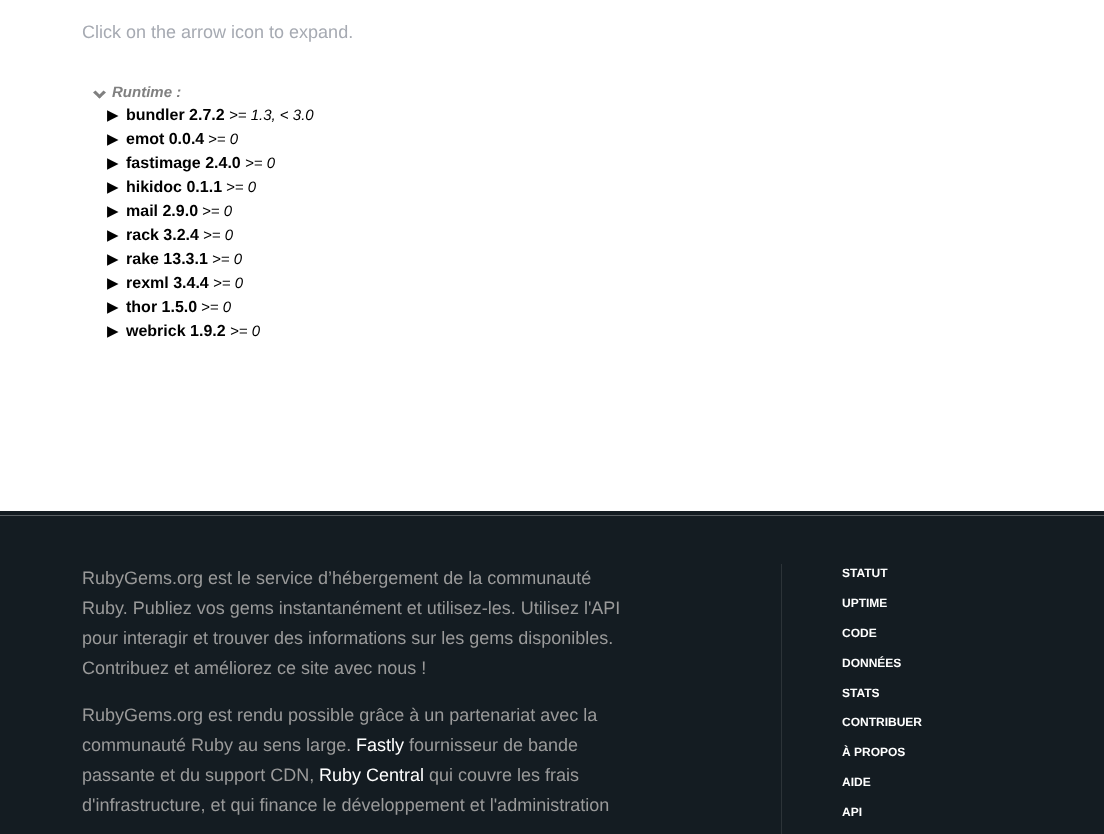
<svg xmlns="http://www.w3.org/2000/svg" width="1104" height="834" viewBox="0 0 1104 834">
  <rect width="100%" height="100%" fill="#fff"/>
  <path d="M106 92.5L99.5 98.5L97.5 96.5L103.5 90.5Z" fill="#808080"/>
  <path d="M101.5 96.5L99.5 98.5L93 92.5L95.5 90.5Z" fill="#808080"/>
  <path d="M0 511h1104v4H0z" fill="#141c22"/>
  <path d="M0 516h1104v318H0z" fill="#141c22"/>
  <path d="M0 515h1104v1H0z" fill="#5b6064"/>
  <path d="M781 564h1v270H781z" fill="#2c3338"/>
  <text x="82" y="38" font-family="Liberation Sans" font-size="18" fill="#a6aab2">Click on the arrow icon to expand.</text>
  <text x="112" y="97" font-family="Liberation Sans" font-size="15" font-weight="bold" font-style="italic" fill="#808080">Runtime :</text>
  <text x="107" y="120" font-family="DejaVu Sans" font-size="15" fill="#000">▶</text>
  <text x="126" y="120" font-family="Liberation Sans" font-size="16" font-weight="bold" fill="#000">bundler 2.7.2</text>
  <text x="229" y="120" font-family="Liberation Sans" font-size="15" font-style="italic" fill="#000">&gt;= 1.3, &lt; 3.0</text>
  <text x="107" y="144" font-family="DejaVu Sans" font-size="15" fill="#000">▶</text>
  <text x="126" y="144" font-family="Liberation Sans" font-size="16" font-weight="bold" fill="#000">emot 0.0.4</text>
  <text x="208" y="144" font-family="Liberation Sans" font-size="15" font-style="italic" fill="#000">&gt;= 0</text>
  <text x="107" y="168" font-family="DejaVu Sans" font-size="15" fill="#000">▶</text>
  <text x="126" y="168" font-family="Liberation Sans" font-size="16" font-weight="bold" fill="#000">fastimage 2.4.0</text>
  <text x="245" y="168" font-family="Liberation Sans" font-size="15" font-style="italic" fill="#000">&gt;= 0</text>
  <text x="107" y="192" font-family="DejaVu Sans" font-size="15" fill="#000">▶</text>
  <text x="126" y="192" font-family="Liberation Sans" font-size="16" font-weight="bold" fill="#000">hikidoc 0.1.1</text>
  <text x="226" y="192" font-family="Liberation Sans" font-size="15" font-style="italic" fill="#000">&gt;= 0</text>
  <text x="107" y="216" font-family="DejaVu Sans" font-size="15" fill="#000">▶</text>
  <text x="126" y="216" font-family="Liberation Sans" font-size="16" font-weight="bold" fill="#000">mail 2.9.0</text>
  <text x="202" y="216" font-family="Liberation Sans" font-size="15" font-style="italic" fill="#000">&gt;= 0</text>
  <text x="107" y="240" font-family="DejaVu Sans" font-size="15" fill="#000">▶</text>
  <text x="126" y="240" font-family="Liberation Sans" font-size="16" font-weight="bold" fill="#000">rack 3.2.4</text>
  <text x="203" y="240" font-family="Liberation Sans" font-size="15" font-style="italic" fill="#000">&gt;= 0</text>
  <text x="107" y="264" font-family="DejaVu Sans" font-size="15" fill="#000">▶</text>
  <text x="126" y="264" font-family="Liberation Sans" font-size="16" font-weight="bold" fill="#000">rake 13.3.1</text>
  <text x="212" y="264" font-family="Liberation Sans" font-size="15" font-style="italic" fill="#000">&gt;= 0</text>
  <text x="107" y="288" font-family="DejaVu Sans" font-size="15" fill="#000">▶</text>
  <text x="126" y="288" font-family="Liberation Sans" font-size="16" font-weight="bold" fill="#000">rexml 3.4.4</text>
  <text x="213" y="288" font-family="Liberation Sans" font-size="15" font-style="italic" fill="#000">&gt;= 0</text>
  <text x="107" y="312" font-family="DejaVu Sans" font-size="15" fill="#000">▶</text>
  <text x="126" y="312" font-family="Liberation Sans" font-size="16" font-weight="bold" fill="#000">thor 1.5.0</text>
  <text x="201" y="312" font-family="Liberation Sans" font-size="15" font-style="italic" fill="#000">&gt;= 0</text>
  <text x="107" y="336" font-family="DejaVu Sans" font-size="15" fill="#000">▶</text>
  <text x="126" y="336" font-family="Liberation Sans" font-size="16" font-weight="bold" fill="#000">webrick 1.9.2</text>
  <text x="230" y="336" font-family="Liberation Sans" font-size="15" font-style="italic" fill="#000">&gt;= 0</text>
  <g font-family="Liberation Sans" font-size="18" fill="#9a9a9a">
    <text x="82" y="584">RubyGems.org est le service d’hébergement de la communauté</text>
    <text x="82" y="614">Ruby. Publiez vos gems instantanément et utilisez-les. Utilisez l'API</text>
    <text x="82" y="644">pour interagir et trouver des informations sur les gems disponibles.</text>
    <text x="82" y="674">Contribuez et améliorez ce site avec nous !</text>
    <text x="82" y="721">RubyGems.org est rendu possible grâce à un partenariat avec la</text>
    <text x="82" y="751">communauté Ruby au sens large.</text>
  </g>
  <text x="356" y="751" font-family="Liberation Sans" font-size="18" fill="#fff">Fastly</text>
  <g font-family="Liberation Sans" font-size="18" fill="#9a9a9a">
    <text x="409" y="751">fournisseur de bande</text>
    <text x="82" y="781">passante et du support CDN,</text>
  </g>
  <text x="319" y="781" font-family="Liberation Sans" font-size="18" fill="#fff">Ruby Central</text>
  <g font-family="Liberation Sans" font-size="18" fill="#9a9a9a">
    <text x="429" y="781">qui couvre les frais</text>
    <text x="82" y="811">d'infrastructure, et qui finance le développement et l'administration</text>
  </g>
  <g font-family="Liberation Sans" font-size="12" font-weight="bold" fill="#fff">
    <text x="842" y="577">STATUT</text>
    <text x="842" y="607">UPTIME</text>
    <text x="842" y="637">CODE</text>
    <text x="842" y="667">DONNÉES</text>
    <text x="842" y="697">STATS</text>
    <text x="842" y="726">CONTRIBUER</text>
    <text x="842" y="756">À PROPOS</text>
    <text x="842" y="786">AIDE</text>
    <text x="842" y="816">API</text>
  </g>
</svg>
